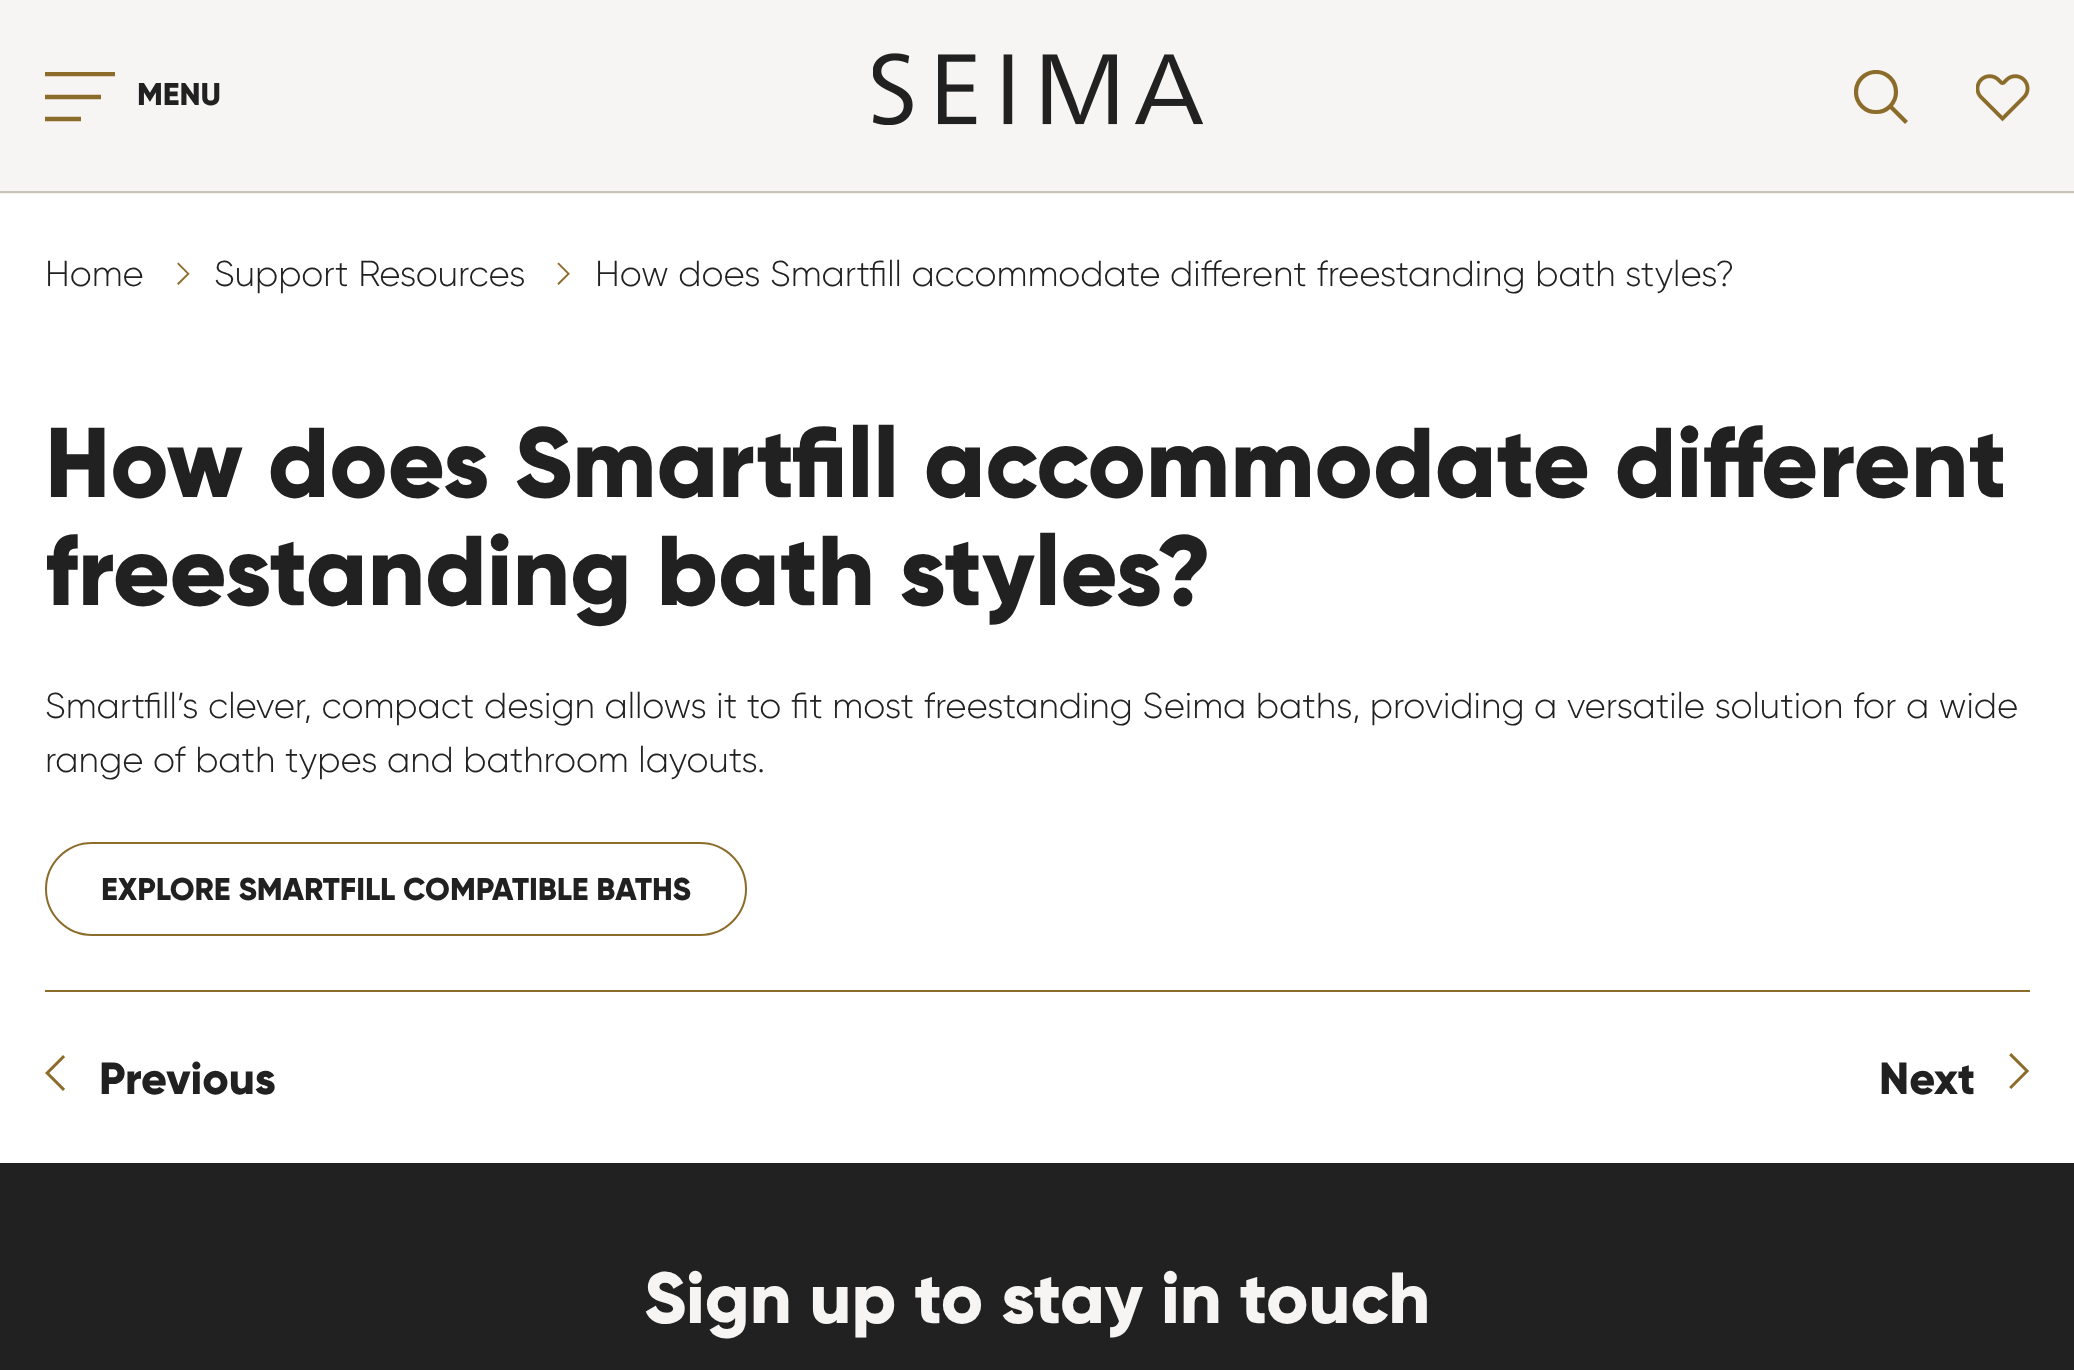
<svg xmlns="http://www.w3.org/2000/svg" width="2074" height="1370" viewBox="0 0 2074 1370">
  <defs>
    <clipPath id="clip1"><path d="M45 72h70v50H45z"/></clipPath>
    <clipPath id="clip2"><path d="M1854 70h54v54H1854z"/></clipPath>
  </defs>
  <rect width="100%" height="100%" fill="#fff"/>
  <path d="M0 0h2074v194H0z" fill="#f6f5f3"/>
  <path d="M0 191h2074v2H0z" fill="#c8c3b8"/>
  <path d="M45 97H101M45 119H81" fill="none" stroke="#8b6c2b" stroke-width="4.5"/>
  <g clip-path="url(#clip1)">
    <path d="M45 74H115" fill="none" stroke="#8b6c2b" stroke-width="4.5"/>
  </g>
  <image x="873" y="53" width="330" height="72" href="img/1.png"/>
  <g clip-path="url(#clip2)">
    <circle cx="1876" cy="92" r="20" fill="none" stroke="#8b6c2b" stroke-width="4.2"/>
  </g>
  <path d="M1890 106L1906.5 122.5" fill="none" stroke="#8b6c2b" stroke-width="4.2"/>
  <image x="1976" y="74" width="54" height="48" href="img/2.png"/>
  <image x="177" y="262" width="13" height="23" href="img/3.png"/>
  <image x="557" y="262" width="13" height="23" href="img/4.png"/>
  <rect x="46" y="843" width="700" height="92" rx="46" fill="none" stroke="#8b6c2b" stroke-width="2"/>
  <path d="M45 990h1985v2H45z" fill="#8b6c2b"/>
  <image x="45" y="1055" width="20" height="36" href="img/5.png"/>
  <image x="2009" y="1053" width="20" height="36" href="img/6.png"/>
  <path d="M0 1163h2074v207H0z" fill="#212121"/>
  <text x="137" y="105" font-family="Gilroy" font-size="31.5" font-weight="800" fill="#212121">MENU</text>
  <g font-family="Gilroy" font-size="36" font-weight="300" fill="#212121">
    <text x="45" y="286">Home</text>
    <text x="214" y="286">Support Resources</text>
    <text x="595" y="286">How does Smartfill accommodate different freestanding bath styles?</text>
  </g>
  <g font-family="Gilroy" font-size="99" font-weight="800" fill="#212121">
    <text x="45" y="497">How does Smartfill accommodate different</text>
    <text x="45" y="605">freestanding bath styles?</text>
  </g>
  <g font-family="Gilroy" font-size="36" font-weight="300" fill="#212121">
    <text x="45" y="718">Smartfill’s clever, compact design allows it to fit most freestanding Seima baths, providing a versatile solution for a wide</text>
    <text x="45" y="772">range of bath types and bathroom layouts.</text>
  </g>
  <text x="101" y="900" font-family="Gilroy" font-size="31.5" font-weight="800" fill="#212121">EXPLORE SMARTFILL COMPATIBLE BATHS</text>
  <g font-family="Gilroy" font-size="45" font-weight="800" fill="#212121">
    <text x="99" y="1094">Previous</text>
    <text x="1879" y="1094">Next</text>
  </g>
  <text x="644" y="1323" font-family="Gilroy" font-size="72" font-weight="800" fill="#f6f5f3">Sign up to stay in touch</text>
</svg>
